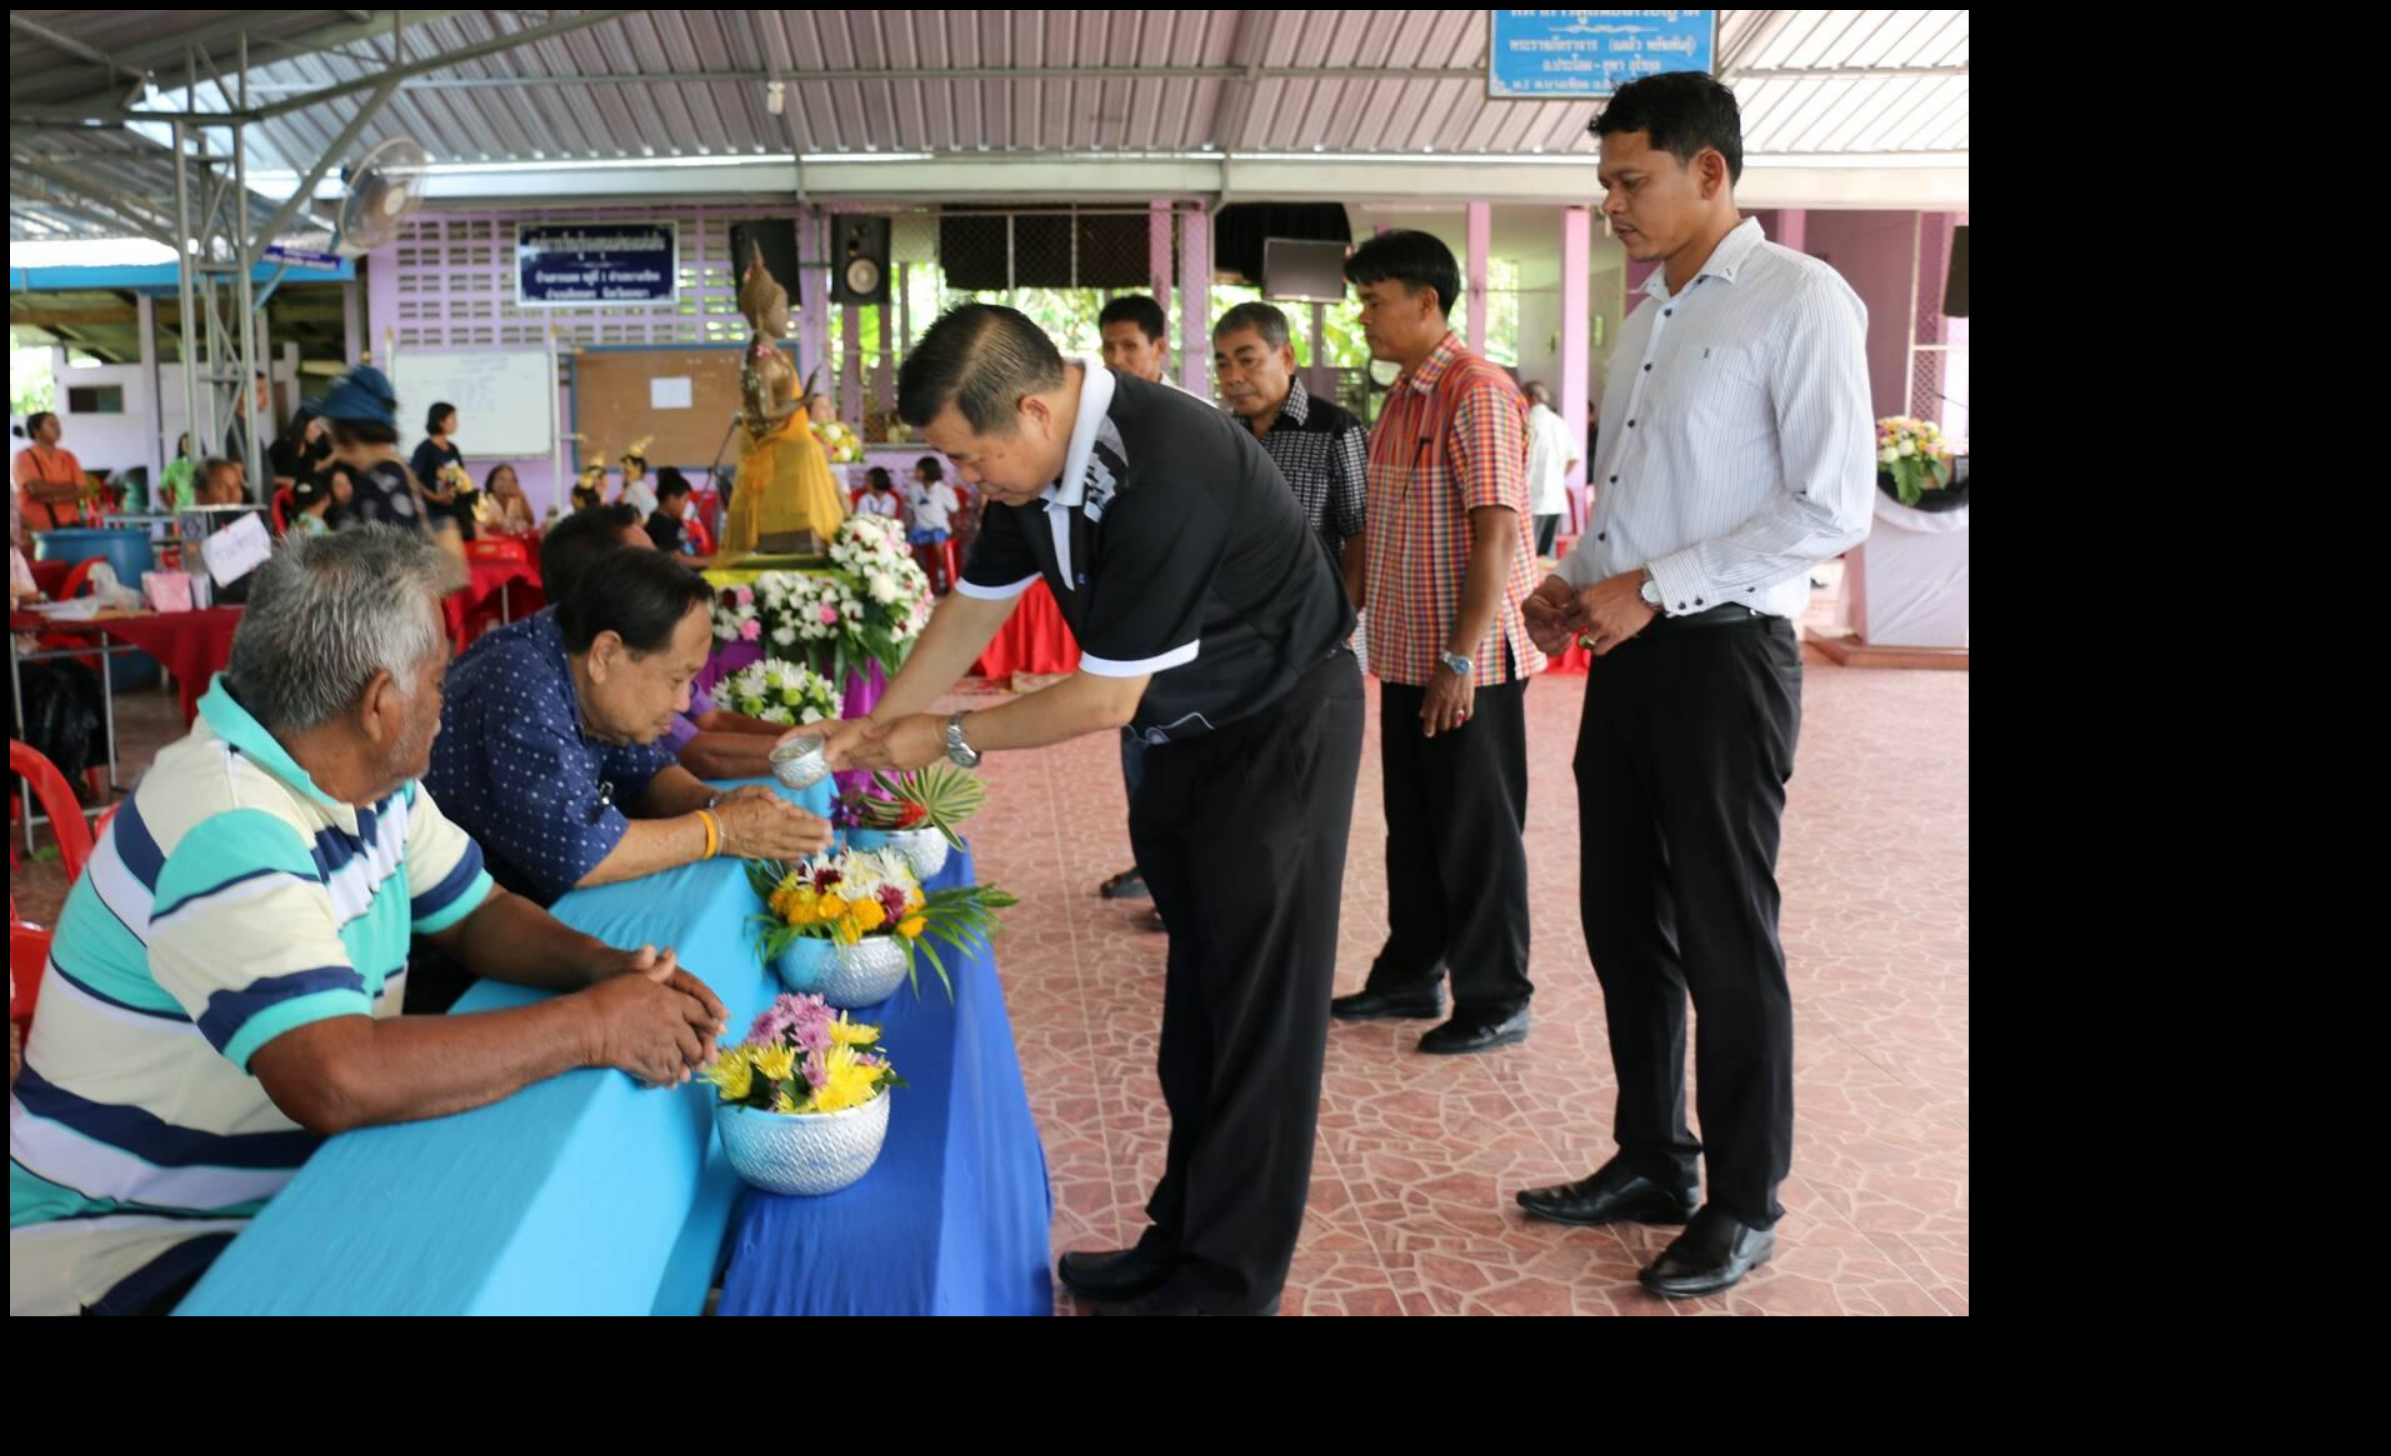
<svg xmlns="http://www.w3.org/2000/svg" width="2391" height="1456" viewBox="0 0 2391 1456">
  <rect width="100%" height="100%" fill="#000"/>
  <image x="10" y="10" width="1959" height="1307" href="img/1.png"/>
</svg>
